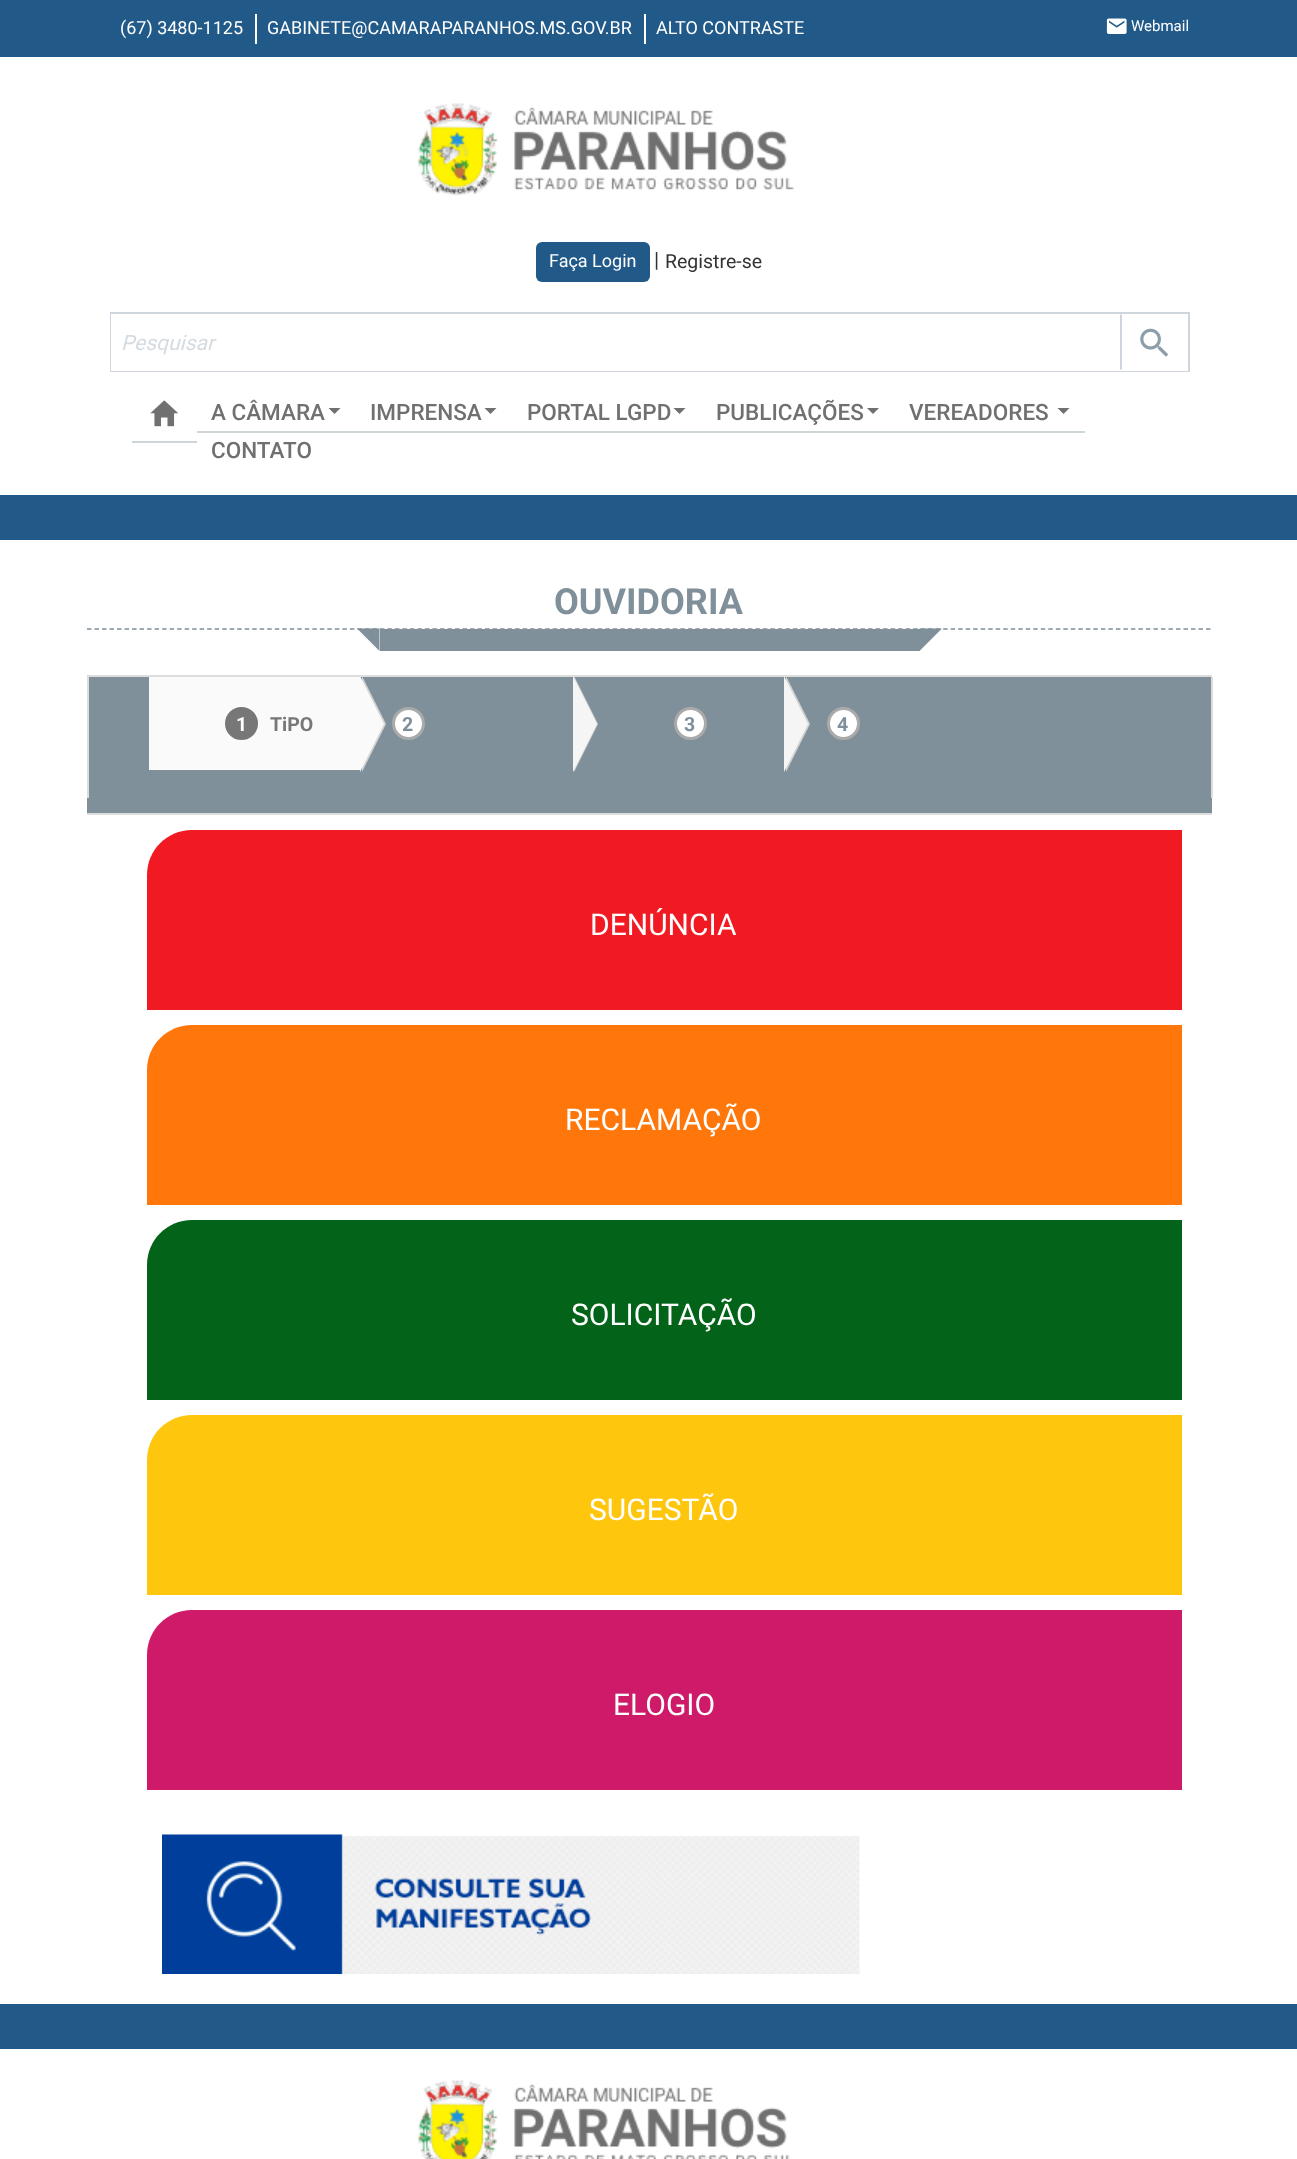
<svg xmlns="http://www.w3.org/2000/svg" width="1297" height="2159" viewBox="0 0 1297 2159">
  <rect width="100%" height="100%" fill="#fff"/>
  <path d="M0 0h1297v57H0z" fill="#215a88"/>
  <path d="M255 14h2v30H255z" fill="#fff"/>
  <path d="M644 14h2v30H644z" fill="#fff"/>
  <image x="1106" y="18" width="21" height="16" href="img/1.png"/>
  <image x="418" y="103" width="376" height="93" href="img/2.png"/>
  <rect x="536" y="242" width="114" height="40" rx="6" fill="#215a88"/>
  <path d="M111 313h1078v58H111z" fill="none" stroke="#cfd5dc" stroke-width="2"/>
  <path d="M111 314h1010v57H111z" fill="#fff"/>
  <path d="M1121 370h67v1H1121z" fill="#fff"/>
  <path d="M1120 370V314L1122 315V369Z" fill="#cfd5dc"/>
  <image x="1140" y="328" width="29" height="29" href="img/3.png"/>
  <path d="M132 441h65v2H132z" fill="#ced5d9"/>
  <image x="150" y="400" width="29" height="27" href="img/4.png"/>
  <path d="M197 431h888v2H197z" fill="#ced5d9"/>
  <path d="M328.5 408H340.5L334.5 414Z" fill="#707070"/>
  <path d="M484.5 408H496.5L490.5 414Z" fill="#707070"/>
  <path d="M673.5 408H685.5L679.5 414Z" fill="#707070"/>
  <path d="M867 408H879L873 414Z" fill="#707070"/>
  <path d="M1057.5 408H1069.5L1063.5 414Z" fill="#707070"/>
  <path d="M0 495h1297v45H0z" fill="#215a88"/>
  <path d="M87 629H1212" fill="none" stroke="#80909a" stroke-width="1.5" stroke-dasharray="4.5 3.01"/>
  <path d="M380 629h540v22H380z" fill="#80909a"/>
  <path d="M357 628.5H379.5V651Z" fill="#80909a"/>
  <path d="M919.5 628.5H942L919.5 651Z" fill="#80909a"/>
  <path d="M87 677h1125v136H87z" fill="#80909a"/>
  <path d="M87 675h1125v2H87z" fill="#ddd"/>
  <path d="M87 813h1125v2H87z" fill="#ddd"/>
  <path d="M1211 677h2v121H1211z" fill="#ddd"/>
  <path d="M87 677h2v121H87z" fill="#ddd"/>
  <path d="M149 677h211v93H149z" fill="#fafafa"/>
  <path d="M362 772V676L386 724Z" fill="#d5d5d5"/>
  <path d="M360 772V676L384 724Z" fill="#fafafa"/>
  <circle cx="241.5" cy="723.5" r="15" fill="#777" stroke="#777" stroke-width="3"/>
  <path d="M574 772V676L598 724Z" fill="#d5d5d5"/>
  <path d="M573 772V676L597 724Z" fill="#f5f5f5"/>
  <circle cx="408.5" cy="723.5" r="15" fill="#fff" stroke="#aaa" stroke-width="3"/>
  <path d="M786 772V676L810 724Z" fill="#d5d5d5"/>
  <path d="M784 772V676L808 724Z" fill="#f5f5f5"/>
  <circle cx="690.5" cy="723.5" r="15" fill="#fff" stroke="#aaa" stroke-width="3"/>
  <circle cx="843.5" cy="723.5" r="15" fill="#fff" stroke="#aaa" stroke-width="3"/>
  <path d="M192 830H1182V1010H147V875C147 850 167 830 192 830Z" fill="#f21a22"/>
  <path d="M192 1025H1182V1205H147V1070C147 1045 167 1025 192 1025Z" fill="#ff770a"/>
  <path d="M192 1220H1182V1400H147V1265C147 1240 167 1220 192 1220Z" fill="#036319"/>
  <path d="M192 1415H1182V1595H147V1460C147 1435 167 1415 192 1415Z" fill="#ffc60e"/>
  <path d="M192 1610H1182V1790H147V1655C147 1630 167 1610 192 1610Z" fill="#ce1a68"/>
  <image x="162" y="1834" width="698" height="140" href="img/5.png"/>
  <path d="M0 2004h1297v45H0z" fill="#215a88"/>
  <image x="418" y="2080" width="372" height="79" href="img/6.png"/>
  <g font-family="Roboto" font-size="18" fill="#fff">
    <text x="120" y="34">(67) 3480-1125</text>
    <text x="267" y="34">GABINETE@CAMARAPARANHOS.MS.GOV.BR</text>
    <text x="656" y="34">ALTO CONTRASTE</text>
  </g>
  <text x="1131" y="31" font-family="Roboto" font-size="15" fill="#fff">Webmail</text>
  <text x="549" y="267" font-family="Roboto" font-size="18" fill="#fff">Faça Login</text>
  <text x="654" y="267" font-family="Roboto" font-size="21" fill="#333">|</text>
  <text x="665" y="268" font-family="Roboto" font-size="19.5" fill="#333">Registre-se</text>
  <text x="121" y="350" font-family="Roboto" font-size="21" font-style="italic" fill="#d4dbe1">Pesquisar</text>
  <g font-family="Roboto" font-size="22.5" font-weight="500" fill="#707070">
    <text x="211" y="420">A CÂMARA</text>
    <text x="370" y="420">IMPRENSA</text>
    <text x="527" y="420">PORTAL LGPD</text>
    <text x="716" y="420">PUBLICAÇÕES</text>
    <text x="909" y="420">VEREADORES</text>
    <text x="211" y="458">CONTATO</text>
  </g>
  <text x="554" y="614" font-family="Roboto" font-size="36" font-weight="bold" fill="#80909a">OUVIDORIA</text>
  <text x="236" y="731" font-family="Roboto" font-size="19.5" font-weight="bold" fill="#fff">1</text>
  <text x="270" y="731" font-family="Roboto" font-size="19.5" font-weight="bold" fill="#777">TiPO</text>
  <g font-family="Roboto" font-size="19.5" font-weight="bold" fill="#80909a">
    <text x="402" y="731">2</text>
    <text x="684" y="731">3</text>
    <text x="837" y="731">4</text>
  </g>
  <g font-family="Roboto" font-size="30" fill="#fff">
    <text x="590" y="935">DENÚNCIA</text>
    <text x="565" y="1130">RECLAMAÇÃO</text>
    <text x="571" y="1325">SOLICITAÇÃO</text>
    <text x="589" y="1520">SUGESTÃO</text>
    <text x="613" y="1715">ELOGIO</text>
  </g>
</svg>
